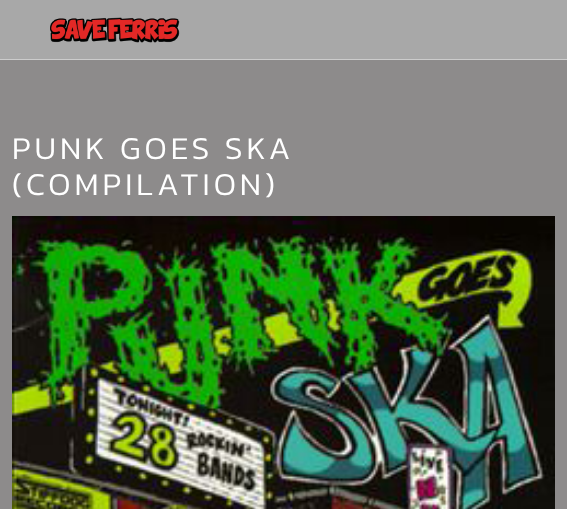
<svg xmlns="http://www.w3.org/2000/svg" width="567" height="509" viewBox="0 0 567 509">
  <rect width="100%" height="100%" fill="#8d8b8b"/>
  <path d="M0 0h567v59H0z" fill="#a8a8a8"/>
  <path d="M0 59h567v1H0z" fill="#ccc"/>
  <image x="50" y="17" width="130" height="26" href="img/1.png"/>
  <image x="12" y="216" width="543" height="293" href="img/2.png"/>
  <g font-family="Kanit" font-size="32" font-weight="300" letter-spacing="4" fill="#fff">
    <text x="12" y="159">PUNK GOES SKA</text>
    <text x="12" y="195">(COMPILATION)</text>
  </g>
</svg>
